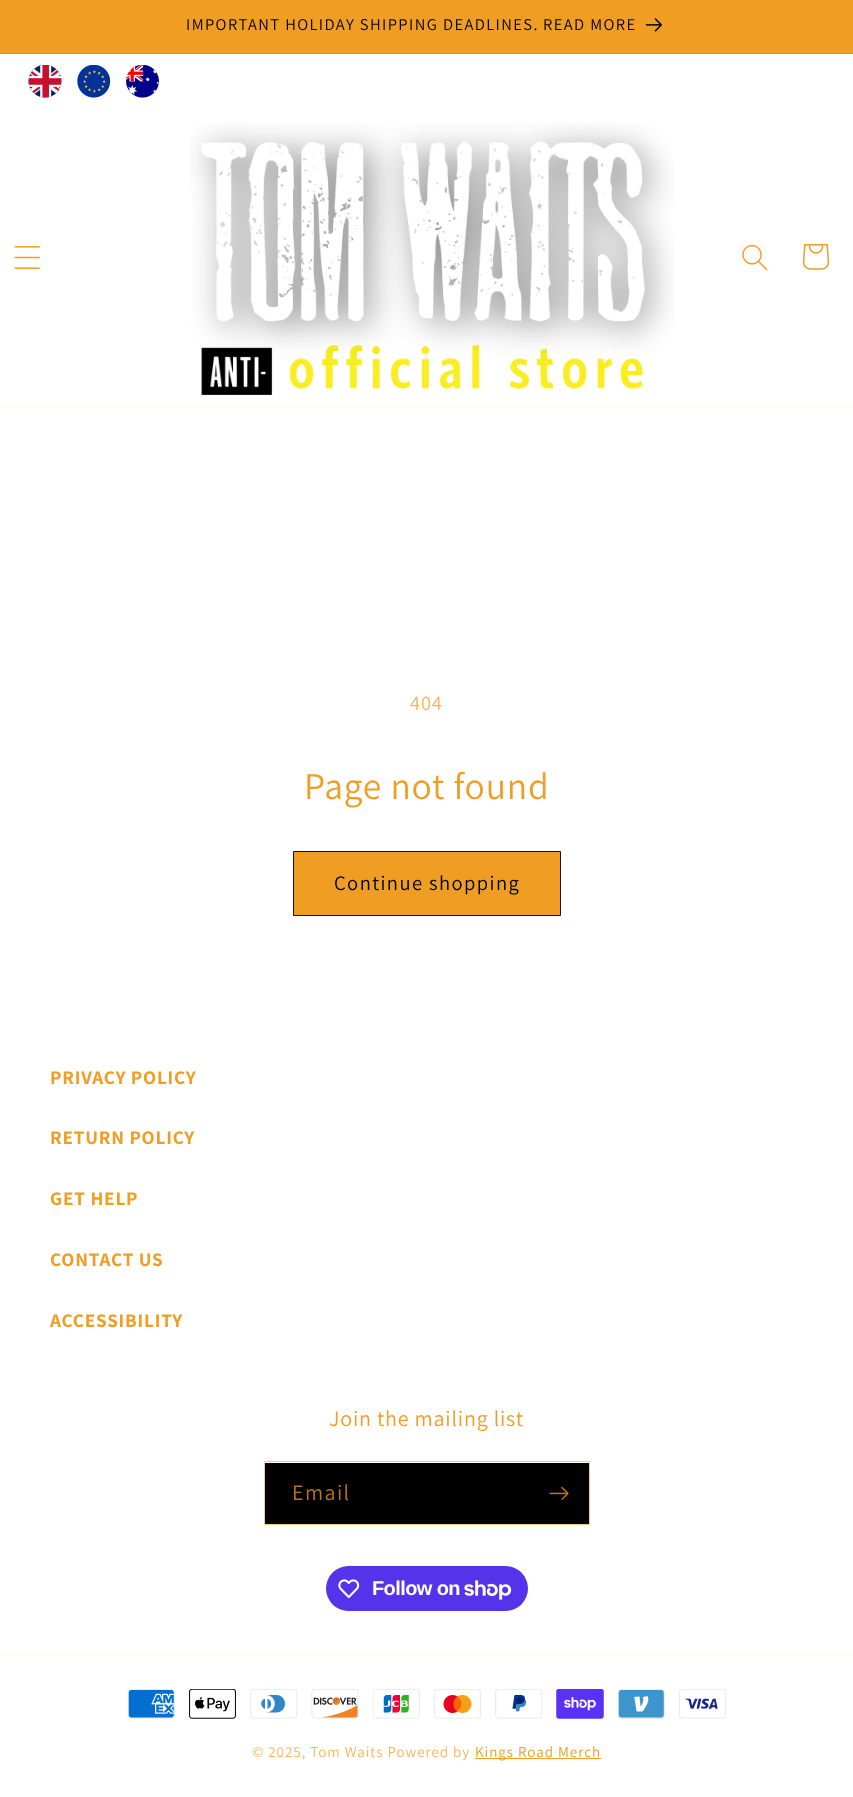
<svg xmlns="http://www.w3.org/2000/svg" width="853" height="1797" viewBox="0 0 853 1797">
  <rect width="100%" height="100%" fill="#fff"/>
  <path d="M0 0h853v53H0z" fill="#f09d24"/>
  <path d="M0 53h853v1H0z" fill="#dd9021"/>
  <image x="646" y="18" width="16" height="14" href="img/1.png"/>
  <image x="28" y="65" width="34" height="33" href="img/2.png"/>
  <image x="77" y="65" width="34" height="33" href="img/3.png"/>
  <image x="126" y="65" width="33" height="33" href="img/4.png"/>
  <path d="M0 406h853v1H0z" fill="#fef7ed"/>
  <image x="14" y="246" width="26" height="23" href="img/5.png"/>
  <image x="190" y="123" width="484" height="272" href="img/6.png"/>
  <image x="742" y="244" width="26" height="27" href="img/7.png"/>
  <image x="802" y="244" width="28" height="26" href="img/8.png"/>
  <path d="M294 852h266v63H294z" fill="#f09d24"/>
  <path d="M293.5 851.5h267v64H293.5z" fill="none" stroke="#121212"/>
  <path d="M265 1463h324v61H265z" fill="#000"/>
  <path d="M264.5 1461.5h325v63H264.5z" fill="none" stroke="#f7c987"/>
  <image x="549" y="1486" width="20" height="14" href="img/9.png"/>
  <rect x="326" y="1566" width="202" height="45" rx="22.5" fill="#5433eb"/>
  <image x="338" y="1579" width="22" height="20" href="img/10.png"/>
  <image x="464" y="1580" width="48" height="20" href="img/11.png"/>
  <path d="M0 1653h853v1H0z" fill="#fef7ed"/>
  <image x="128" y="1689" width="47" height="30" href="img/12.png"/>
  <image x="189" y="1689" width="47" height="30" href="img/13.png"/>
  <image x="250" y="1689" width="48" height="30" href="img/14.png"/>
  <image x="311" y="1689" width="48" height="30" href="img/15.png"/>
  <image x="373" y="1689" width="47" height="30" href="img/16.png"/>
  <image x="434" y="1689" width="47" height="30" href="img/17.png"/>
  <image x="495" y="1689" width="48" height="30" href="img/18.png"/>
  <image x="556" y="1689" width="48" height="30" href="img/19.png"/>
  <image x="618" y="1689" width="47" height="30" href="img/20.png"/>
  <image x="679" y="1689" width="47" height="30" href="img/21.png"/>
  <path d="M475 1758h126v1H475z" fill="#f09d24"/>
  <g font-family="Assistant" font-size="16.5" letter-spacing="1.4" fill="#000">
    <text x="186" y="30">IMPORTANT HOLIDAY SHIPPING DEADLINES.</text>
    <text x="543" y="30">READ MORE</text>
  </g>
  <text x="410" y="710" font-family="Assistant" font-size="20.6" letter-spacing="0.8" fill="#f4b65b">404</text>
  <text x="304" y="799" font-family="Assistant" font-size="37.5" letter-spacing="0.8" fill="#f09d24">Page not found</text>
  <text x="334" y="890" font-family="Assistant" font-size="20.6" letter-spacing="1.4" fill="#000">Continue shopping</text>
  <g font-family="Assistant" font-size="19.25" font-weight="bold" letter-spacing="0.8" fill="#f09d24">
    <text x="50" y="1084">PRIVACY POLICY</text>
    <text x="50" y="1144">RETURN POLICY</text>
    <text x="50" y="1205">GET HELP</text>
    <text x="50" y="1266">CONTACT US</text>
    <text x="50" y="1327">ACCESSIBILITY</text>
  </g>
  <text x="329" y="1426" font-family="Assistant" font-size="22" letter-spacing="0.8" fill="#f09d24">Join the mailing list</text>
  <text x="292" y="1500" font-family="Assistant" font-size="22" letter-spacing="1.4" fill="#b4761b">Email</text>
  <text x="372" y="1595" font-family="Liberation Sans" font-size="20" font-weight="bold" letter-spacing="-0.6" fill="#fff">Follow on</text>
  <text x="252" y="1757" font-family="Assistant" font-size="15.1" letter-spacing="0.95" fill="#f4b65b">© 2025, Tom Waits Powered by</text>
  <text x="475" y="1757" font-family="Assistant" font-size="15.1" letter-spacing="0.95" fill="#f09d24">Kings Road Merch</text>
</svg>
